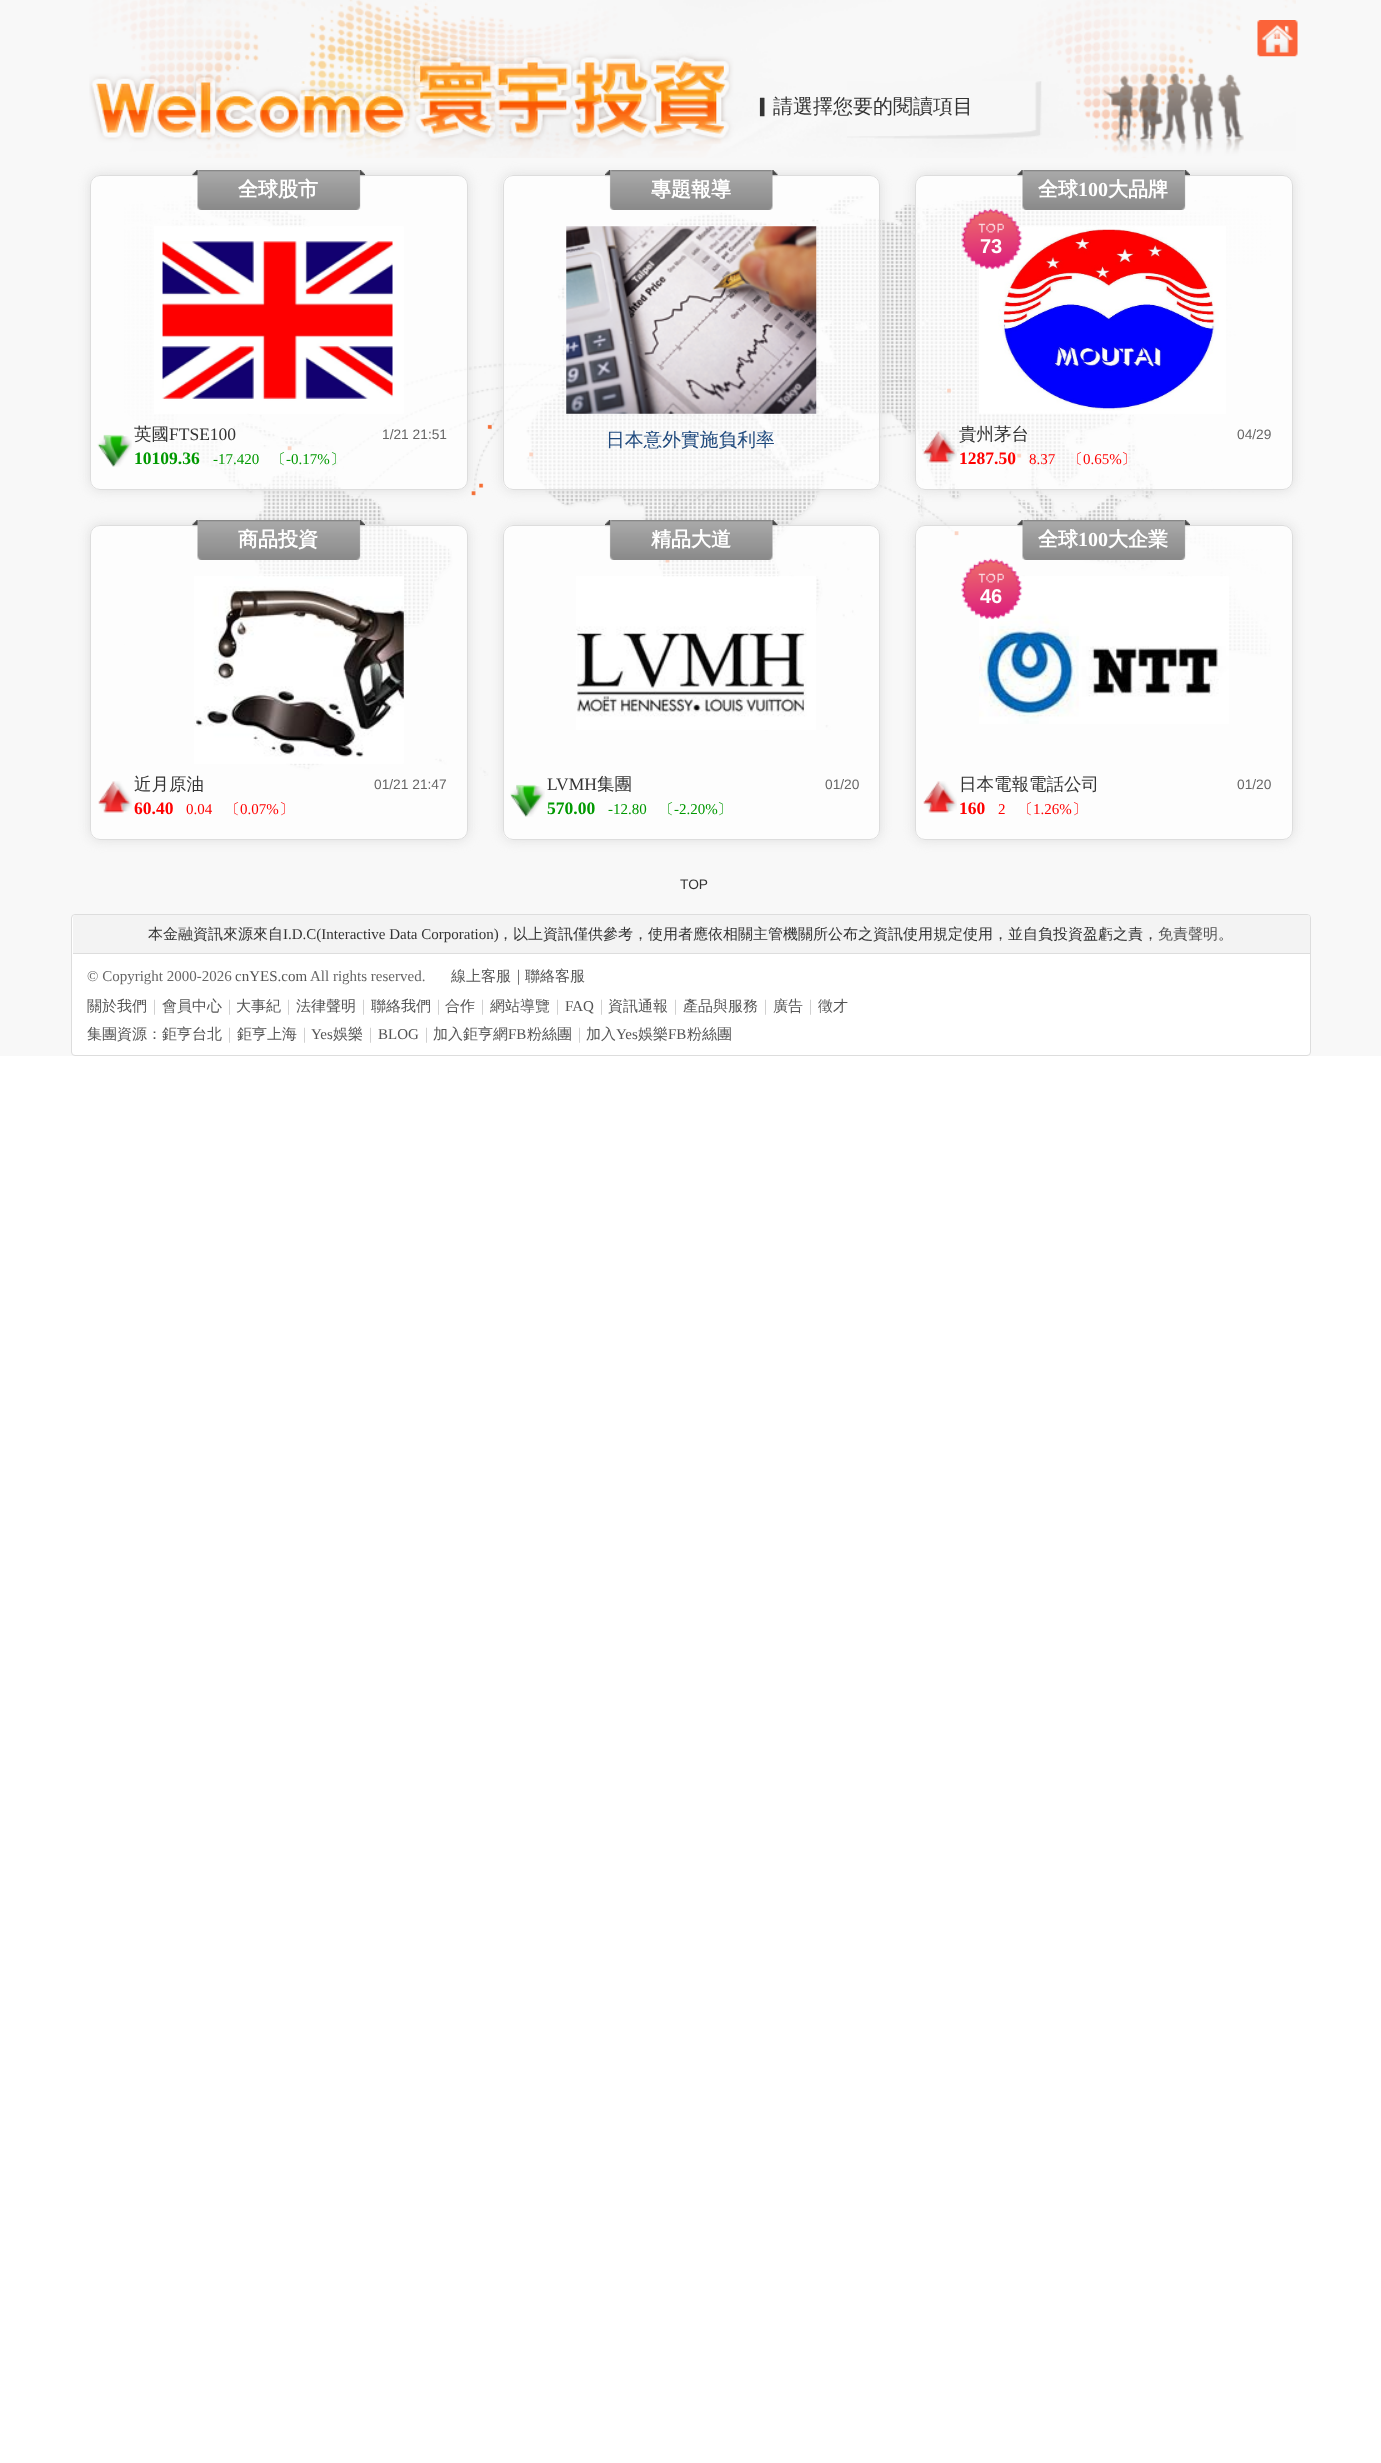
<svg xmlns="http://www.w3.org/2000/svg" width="1381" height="2463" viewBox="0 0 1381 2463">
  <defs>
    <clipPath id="clip1"><path d="M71 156H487V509H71ZM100 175H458C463.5 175 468 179.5 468 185V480C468 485.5 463.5 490 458 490H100C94.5 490 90 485.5 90 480V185C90 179.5 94.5 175 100 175Z" clip-rule="evenodd"/></clipPath>
    <clipPath id="clip2"><path d="M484 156H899V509H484ZM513 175H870C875.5 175 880 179.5 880 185V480C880 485.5 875.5 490 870 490H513C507.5 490 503 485.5 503 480V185C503 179.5 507.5 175 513 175Z" clip-rule="evenodd"/></clipPath>
    <clipPath id="clip3"><path d="M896 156H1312V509H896ZM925 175H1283C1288.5 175 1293 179.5 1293 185V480C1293 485.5 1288.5 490 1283 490H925C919.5 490 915 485.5 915 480V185C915 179.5 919.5 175 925 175Z" clip-rule="evenodd"/></clipPath>
    <clipPath id="clip4"><path d="M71 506H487V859H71ZM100 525H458C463.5 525 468 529.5 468 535V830C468 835.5 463.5 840 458 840H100C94.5 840 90 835.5 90 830V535C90 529.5 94.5 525 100 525Z" clip-rule="evenodd"/></clipPath>
    <clipPath id="clip5"><path d="M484 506H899V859H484ZM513 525H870C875.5 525 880 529.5 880 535V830C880 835.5 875.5 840 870 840H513C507.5 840 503 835.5 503 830V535C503 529.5 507.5 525 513 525Z" clip-rule="evenodd"/></clipPath>
    <clipPath id="clip6"><path d="M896 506H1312V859H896ZM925 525H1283C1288.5 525 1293 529.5 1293 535V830C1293 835.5 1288.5 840 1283 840H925C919.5 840 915 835.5 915 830V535C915 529.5 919.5 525 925 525Z" clip-rule="evenodd"/></clipPath>
  </defs>
  <rect width="100%" height="100%" fill="#fff"/>
  <path d="M0 0h1381v1056H0z" fill="#f8f8f8"/>
  <image x="89" y="0" width="1207" height="163" href="img/1.png"/>
  <image x="1257" y="20" width="41" height="37" href="img/2.png"/>
  <image x="847" y="81" width="195" height="58" href="img/3.png"/>
  <image x="124" y="158" width="1147" height="618" href="img/4.png"/>
  <g clip-path="url(#clip1)">
    <rect x="90" y="175" width="378" height="315" rx="10" fill="#ddd" filter="blur(6px)"/>
  </g>
  <image x="90" y="175" width="378" height="315" href="img/5.png"/>
  <rect x="90.5" y="175.5" width="377" height="314" rx="9.5" fill="none" stroke="#ddd"/>
  <image x="192" y="170" width="173" height="40" href="img/6.png"/>
  <image x="154" y="226" width="250" height="188" href="img/7.png"/>
  <image x="97" y="434" width="35" height="33" href="img/8.png"/>
  <g clip-path="url(#clip2)">
    <rect x="503" y="175" width="377" height="315" rx="10" fill="#ddd" filter="blur(6px)"/>
  </g>
  <image x="502" y="175" width="378" height="315" href="img/9.png"/>
  <rect x="503.5" y="175.5" width="376" height="314" rx="9.5" fill="none" stroke="#ddd"/>
  <image x="605" y="170" width="173" height="40" href="img/10.png"/>
  <image x="566" y="226" width="251" height="188" href="img/11.png"/>
  <g clip-path="url(#clip3)">
    <rect x="915" y="175" width="378" height="315" rx="10" fill="#ddd" filter="blur(6px)"/>
  </g>
  <image x="915" y="175" width="377" height="315" href="img/12.png"/>
  <rect x="915.5" y="175.5" width="377" height="314" rx="9.5" fill="none" stroke="#ddd"/>
  <image x="1017" y="170" width="173" height="40" href="img/13.png"/>
  <image x="979" y="226" width="247" height="188" href="img/14.png"/>
  <image x="961" y="208" width="62" height="62" href="img/15.png"/>
  <image x="923" y="431" width="34" height="32" href="img/16.png"/>
  <g clip-path="url(#clip4)">
    <rect x="90" y="525" width="378" height="315" rx="10" fill="#ddd" filter="blur(6px)"/>
  </g>
  <image x="90" y="525" width="377" height="315" href="img/17.png"/>
  <rect x="90.5" y="525.5" width="377" height="314" rx="9.5" fill="none" stroke="#ddd"/>
  <image x="192" y="520" width="173" height="40" href="img/18.png"/>
  <image x="194" y="576" width="210" height="188" href="img/19.png"/>
  <image x="98" y="781" width="34" height="32" href="img/20.png"/>
  <g clip-path="url(#clip5)">
    <rect x="503" y="525" width="377" height="315" rx="10" fill="#ddd" filter="blur(6px)"/>
  </g>
  <image x="503" y="525" width="377" height="315" href="img/21.png"/>
  <rect x="503.5" y="525.5" width="376" height="314" rx="9.5" fill="none" stroke="#ddd"/>
  <image x="605" y="520" width="173" height="40" href="img/22.png"/>
  <image x="576" y="576" width="240" height="154" href="img/23.png"/>
  <image x="510" y="784" width="35" height="33" href="img/24.png"/>
  <g clip-path="url(#clip6)">
    <rect x="915" y="525" width="378" height="315" rx="10" fill="#ddd" filter="blur(6px)"/>
  </g>
  <image x="915" y="525" width="377" height="315" href="img/25.png"/>
  <rect x="915.5" y="525.5" width="377" height="314" rx="9.5" fill="none" stroke="#ddd"/>
  <image x="1017" y="520" width="173" height="40" href="img/26.png"/>
  <image x="979" y="576" width="250" height="148" href="img/27.png"/>
  <image x="961" y="558" width="62" height="62" href="img/28.png"/>
  <image x="923" y="781" width="34" height="32" href="img/29.png"/>
  <rect x="71.5" y="914.5" width="1239" height="141" rx="3.5" fill="#fff" stroke="#ddd"/>
  <path d="M75.5 915H1307.5C1309 915 1310 916 1310 917.5V954H73V917.5C73 916 74 915 75.5 915Z" fill="#f3f3f3"/>
  <path d="M73 953h1237v1H73z" fill="#ddd"/>
  <text x="753" y="113" font-family="WenQuanYi Zen Hei" font-size="20" font-weight="500" fill="#333">▎請選擇您要的閱讀項目</text>
  <text x="238" y="196" font-family="WenQuanYi Zen Hei" font-size="20" font-weight="bold" fill="#fff">全球股市</text>
  <text x="134" y="440" font-family="WenQuanYi Zen Hei" font-size="17.5" font-weight="500" fill="#333">英國</text>
  <text x="169" y="440" font-family="Liberation Serif" font-size="17.5" fill="#333">FTSE100</text>
  <text x="382" y="439" font-family="Liberation Sans" font-size="13.75" fill="#666">1/21 21:51</text>
  <text x="134" y="464" font-family="Liberation Serif" font-size="17.5" font-weight="bold" fill="#090">10109.36</text>
  <text x="213" y="464" font-family="Liberation Serif" font-size="15" fill="#090">-17.420</text>
  <text x="271" y="464" font-family="WenQuanYi Zen Hei" font-size="15" font-weight="500" fill="#090">〔</text>
  <text x="286" y="464" font-family="Liberation Serif" font-size="15" fill="#090">-0.17%</text>
  <text x="330" y="464" font-family="WenQuanYi Zen Hei" font-size="15" font-weight="500" fill="#090">〕</text>
  <text x="651" y="196" font-family="WenQuanYi Zen Hei" font-size="20" font-weight="bold" fill="#fff">專題報導</text>
  <text x="606" y="446" font-family="WenQuanYi Zen Hei" font-size="18.75" font-weight="500" fill="#1f497d">日本意外實施負利率</text>
  <text x="1038" y="196" font-family="WenQuanYi Zen Hei" font-size="20" font-weight="bold" fill="#fff">全球</text>
  <text x="1078" y="196" font-family="Liberation Serif" font-size="20" font-weight="bold" fill="#fff">100</text>
  <text x="1108" y="196" font-family="WenQuanYi Zen Hei" font-size="20" font-weight="bold" fill="#fff">大品牌</text>
  <text x="980" y="253" font-family="Liberation Sans" font-size="20" font-weight="bold" fill="#fff">73</text>
  <text x="959" y="440" font-family="WenQuanYi Zen Hei" font-size="17.5" font-weight="500" fill="#333">貴州茅台</text>
  <text x="1237" y="439" font-family="Liberation Sans" font-size="13.75" fill="#666">04/29</text>
  <text x="959" y="464" font-family="Liberation Serif" font-size="17.5" font-weight="bold" fill="#f00">1287.50</text>
  <text x="1029" y="464" font-family="Liberation Serif" font-size="15" fill="#f00">8.37</text>
  <text x="1068" y="464" font-family="WenQuanYi Zen Hei" font-size="15" font-weight="500" fill="#f00">〔</text>
  <text x="1083" y="464" font-family="Liberation Serif" font-size="15" fill="#f00">0.65%</text>
  <text x="1121" y="464" font-family="WenQuanYi Zen Hei" font-size="15" font-weight="500" fill="#f00">〕</text>
  <text x="238" y="546" font-family="WenQuanYi Zen Hei" font-size="20" font-weight="bold" fill="#fff">商品投資</text>
  <text x="134" y="790" font-family="WenQuanYi Zen Hei" font-size="17.5" font-weight="500" fill="#333">近月原油</text>
  <text x="374" y="789" font-family="Liberation Sans" font-size="13.75" fill="#666">01/21 21:47</text>
  <text x="134" y="814" font-family="Liberation Serif" font-size="17.5" font-weight="bold" fill="#f00">60.40</text>
  <text x="186" y="814" font-family="Liberation Serif" font-size="15" fill="#f00">0.04</text>
  <text x="225" y="814" font-family="WenQuanYi Zen Hei" font-size="15" font-weight="500" fill="#f00">〔</text>
  <text x="240" y="814" font-family="Liberation Serif" font-size="15" fill="#f00">0.07%</text>
  <text x="279" y="814" font-family="WenQuanYi Zen Hei" font-size="15" font-weight="500" fill="#f00">〕</text>
  <text x="651" y="546" font-family="WenQuanYi Zen Hei" font-size="20" font-weight="bold" fill="#fff">精品大道</text>
  <text x="547" y="790" font-family="Liberation Serif" font-size="17.5" fill="#333">LVMH</text>
  <text x="597" y="790" font-family="WenQuanYi Zen Hei" font-size="17.5" font-weight="500" fill="#333">集團</text>
  <text x="825" y="789" font-family="Liberation Sans" font-size="13.75" fill="#666">01/20</text>
  <text x="547" y="814" font-family="Liberation Serif" font-size="17.5" font-weight="bold" fill="#090">570.00</text>
  <text x="608" y="814" font-family="Liberation Serif" font-size="15" fill="#090">-12.80</text>
  <text x="659" y="814" font-family="WenQuanYi Zen Hei" font-size="15" font-weight="500" fill="#090">〔</text>
  <text x="674" y="814" font-family="Liberation Serif" font-size="15" fill="#090">-2.20%</text>
  <text x="717" y="814" font-family="WenQuanYi Zen Hei" font-size="15" font-weight="500" fill="#090">〕</text>
  <text x="1038" y="546" font-family="WenQuanYi Zen Hei" font-size="20" font-weight="bold" fill="#fff">全球</text>
  <text x="1078" y="546" font-family="Liberation Serif" font-size="20" font-weight="bold" fill="#fff">100</text>
  <text x="1108" y="546" font-family="WenQuanYi Zen Hei" font-size="20" font-weight="bold" fill="#fff">大企業</text>
  <text x="980" y="603" font-family="Liberation Sans" font-size="20" font-weight="bold" fill="#fff">46</text>
  <text x="959" y="790" font-family="WenQuanYi Zen Hei" font-size="17.5" font-weight="500" fill="#333">日本電報電話公司</text>
  <text x="1237" y="789" font-family="Liberation Sans" font-size="13.75" fill="#666">01/20</text>
  <text x="959" y="814" font-family="Liberation Serif" font-size="17.5" font-weight="bold" fill="#f00">160</text>
  <text x="998" y="814" font-family="Liberation Serif" font-size="15" fill="#f00">2</text>
  <text x="1018" y="814" font-family="WenQuanYi Zen Hei" font-size="15" font-weight="500" fill="#f00">〔</text>
  <text x="1033" y="814" font-family="Liberation Serif" font-size="15" fill="#f00">1.26%</text>
  <text x="1072" y="814" font-family="WenQuanYi Zen Hei" font-size="15" font-weight="500" fill="#f00">〕</text>
  <text x="680" y="889" font-family="Liberation Sans" font-size="13.75" fill="#333">TOP</text>
  <text x="148" y="939" font-family="WenQuanYi Zen Hei" font-size="15" font-weight="500" fill="#333">本金融資訊來源來自</text>
  <text x="283" y="939" font-family="Liberation Serif" font-size="15" fill="#333">I.D.C(Interactive Data Corporation)</text>
  <text x="498" y="939" font-family="WenQuanYi Zen Hei" font-size="15" font-weight="500" fill="#333">，以上資訊僅供參考，使用者應依相關主管機關所公布之資訊使用規定使用，並自負投資盈虧之責，</text>
  <text x="1158" y="939" font-family="WenQuanYi Zen Hei" font-size="15" font-weight="500" fill="#555">免責聲明</text>
  <text x="1218" y="939" font-family="WenQuanYi Zen Hei" font-size="15" font-weight="500" fill="#333">。</text>
  <text x="87" y="981" font-family="Liberation Serif" font-size="15" fill="#666">© Copyright 2000-2026</text>
  <text x="235" y="981" font-family="Liberation Serif" font-size="15" fill="#555">cnYES.com</text>
  <text x="310" y="981" font-family="Liberation Serif" font-size="15" fill="#666">All rights reserved.</text>
  <text x="451" y="981" font-family="WenQuanYi Zen Hei" font-size="15" font-weight="500" fill="#555">線上客服</text>
  <text x="511" y="981" font-family="WenQuanYi Zen Hei" font-size="15" font-weight="500" fill="#666">｜</text>
  <g font-family="WenQuanYi Zen Hei" font-size="15" font-weight="500" fill="#555">
    <text x="525" y="981">聯絡客服</text>
    <text x="87" y="1011">關於我們</text>
  </g>
  <text x="147" y="1011" font-family="WenQuanYi Zen Hei" font-size="15" font-weight="500" fill="#ccc">｜</text>
  <text x="162" y="1011" font-family="WenQuanYi Zen Hei" font-size="15" font-weight="500" fill="#555">會員中心</text>
  <text x="222" y="1011" font-family="WenQuanYi Zen Hei" font-size="15" font-weight="500" fill="#ccc">｜</text>
  <text x="236" y="1011" font-family="WenQuanYi Zen Hei" font-size="15" font-weight="500" fill="#555">大事紀</text>
  <text x="281" y="1011" font-family="WenQuanYi Zen Hei" font-size="15" font-weight="500" fill="#ccc">｜</text>
  <text x="296" y="1011" font-family="WenQuanYi Zen Hei" font-size="15" font-weight="500" fill="#555">法律聲明</text>
  <text x="356" y="1011" font-family="WenQuanYi Zen Hei" font-size="15" font-weight="500" fill="#ccc">｜</text>
  <text x="371" y="1011" font-family="WenQuanYi Zen Hei" font-size="15" font-weight="500" fill="#555">聯絡我們</text>
  <text x="431" y="1011" font-family="WenQuanYi Zen Hei" font-size="15" font-weight="500" fill="#ccc">｜</text>
  <text x="445" y="1011" font-family="WenQuanYi Zen Hei" font-size="15" font-weight="500" fill="#555">合作</text>
  <text x="475" y="1011" font-family="WenQuanYi Zen Hei" font-size="15" font-weight="500" fill="#ccc">｜</text>
  <text x="490" y="1011" font-family="WenQuanYi Zen Hei" font-size="15" font-weight="500" fill="#555">網站導覽</text>
  <text x="550" y="1011" font-family="WenQuanYi Zen Hei" font-size="15" font-weight="500" fill="#ccc">｜</text>
  <text x="565" y="1011" font-family="Liberation Serif" font-size="15" fill="#555">FAQ</text>
  <text x="594" y="1011" font-family="WenQuanYi Zen Hei" font-size="15" font-weight="500" fill="#ccc">｜</text>
  <text x="608" y="1011" font-family="WenQuanYi Zen Hei" font-size="15" font-weight="500" fill="#555">資訊通報</text>
  <text x="668" y="1011" font-family="WenQuanYi Zen Hei" font-size="15" font-weight="500" fill="#ccc">｜</text>
  <text x="683" y="1011" font-family="WenQuanYi Zen Hei" font-size="15" font-weight="500" fill="#555">產品與服務</text>
  <text x="758" y="1011" font-family="WenQuanYi Zen Hei" font-size="15" font-weight="500" fill="#ccc">｜</text>
  <text x="773" y="1011" font-family="WenQuanYi Zen Hei" font-size="15" font-weight="500" fill="#555">廣告</text>
  <text x="803" y="1011" font-family="WenQuanYi Zen Hei" font-size="15" font-weight="500" fill="#ccc">｜</text>
  <g font-family="WenQuanYi Zen Hei" font-size="15" font-weight="500" fill="#555">
    <text x="818" y="1011">徵才</text>
    <text x="87" y="1039">集團資源：鉅亨台北</text>
  </g>
  <text x="222" y="1039" font-family="WenQuanYi Zen Hei" font-size="15" font-weight="500" fill="#ccc">｜</text>
  <text x="237" y="1039" font-family="WenQuanYi Zen Hei" font-size="15" font-weight="500" fill="#555">鉅亨上海</text>
  <text x="297" y="1039" font-family="WenQuanYi Zen Hei" font-size="15" font-weight="500" fill="#ccc">｜</text>
  <text x="311" y="1039" font-family="Liberation Serif" font-size="15" fill="#555">Yes</text>
  <text x="333" y="1039" font-family="WenQuanYi Zen Hei" font-size="15" font-weight="500" fill="#555">娛樂</text>
  <text x="363" y="1039" font-family="WenQuanYi Zen Hei" font-size="15" font-weight="500" fill="#ccc">｜</text>
  <text x="378" y="1039" font-family="Liberation Serif" font-size="15" fill="#555">BLOG</text>
  <text x="419" y="1039" font-family="WenQuanYi Zen Hei" font-size="15" font-weight="500" fill="#ccc">｜</text>
  <text x="433" y="1039" font-family="WenQuanYi Zen Hei" font-size="15" font-weight="500" fill="#555">加入鉅亨網</text>
  <text x="508" y="1039" font-family="Liberation Serif" font-size="15" fill="#555">FB</text>
  <text x="527" y="1039" font-family="WenQuanYi Zen Hei" font-size="15" font-weight="500" fill="#555">粉絲團</text>
  <text x="572" y="1039" font-family="WenQuanYi Zen Hei" font-size="15" font-weight="500" fill="#ccc">｜</text>
  <text x="586" y="1039" font-family="WenQuanYi Zen Hei" font-size="15" font-weight="500" fill="#555">加入</text>
  <text x="616" y="1039" font-family="Liberation Serif" font-size="15" fill="#555">Yes</text>
  <text x="638" y="1039" font-family="WenQuanYi Zen Hei" font-size="15" font-weight="500" fill="#555">娛樂</text>
  <text x="668" y="1039" font-family="Liberation Serif" font-size="15" fill="#555">FB</text>
  <text x="687" y="1039" font-family="WenQuanYi Zen Hei" font-size="15" font-weight="500" fill="#555">粉絲團</text>
</svg>
